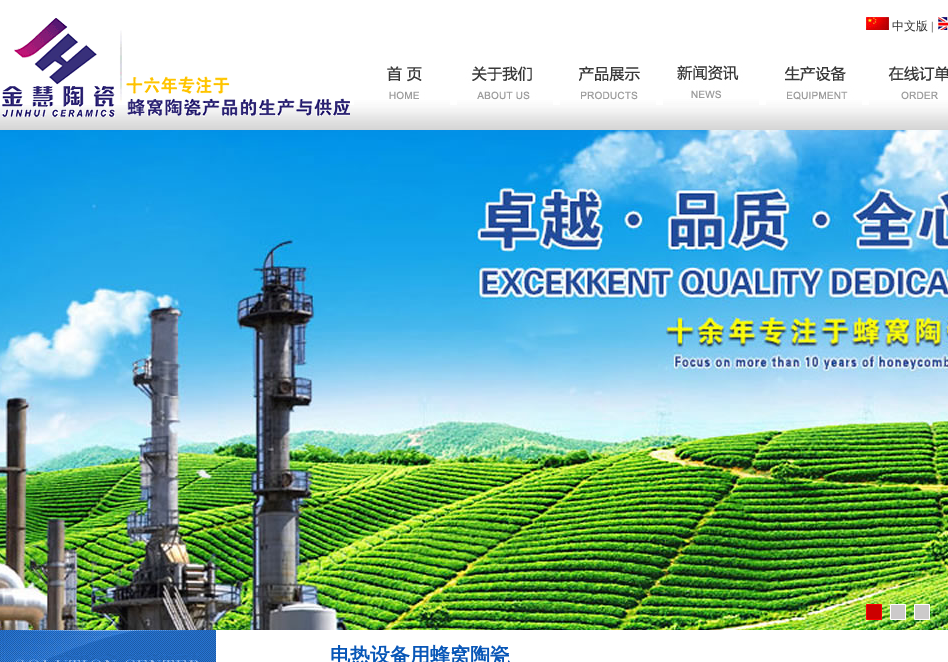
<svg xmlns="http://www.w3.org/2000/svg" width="948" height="662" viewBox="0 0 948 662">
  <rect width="100%" height="100%" fill="#fff"/>
  <image x="0" y="105" width="948" height="25" href="img/1.png"/>
  <image x="2" y="18" width="348" height="99" href="img/2.png"/>
  <image x="866" y="17" width="23" height="13" href="img/3.png"/>
  <image x="938" y="17" width="10" height="13" href="img/4.png"/>
  <image x="354" y="66" width="96" height="39" href="img/5.png"/>
  <image x="457" y="66" width="96" height="39" href="img/6.png"/>
  <image x="560" y="66" width="96" height="39" href="img/7.png"/>
  <image x="663" y="65" width="96" height="40" href="img/8.png"/>
  <image x="766" y="66" width="96" height="39" href="img/9.png"/>
  <image x="869" y="66" width="79" height="39" href="img/10.png"/>
  <image x="0" y="130" width="948" height="500" href="img/11.png"/>
  <path d="M866.5 604.5h15v15H866.5z" fill="#c00" stroke="#f00"/>
  <path d="M890.5 604.5h15v15H890.5z" fill="#cccaca" stroke="#fff"/>
  <path d="M914.5 604.5h15v15H914.5z" fill="#cccaca" stroke="#fff"/>
  <image x="0" y="630" width="216" height="32" href="img/12.png"/>
  <text x="892" y="30" font-family="WenQuanYi Zen Hei" font-size="12" font-weight="500" fill="#333">中文版</text>
  <text x="931" y="30" font-family="Liberation Serif" font-size="12" fill="#333">|</text>
  <text x="330" y="662" font-family="WenQuanYi Zen Hei" font-size="20" font-weight="bold" fill="#0756b7">电热设备用蜂窝陶瓷</text>
</svg>
